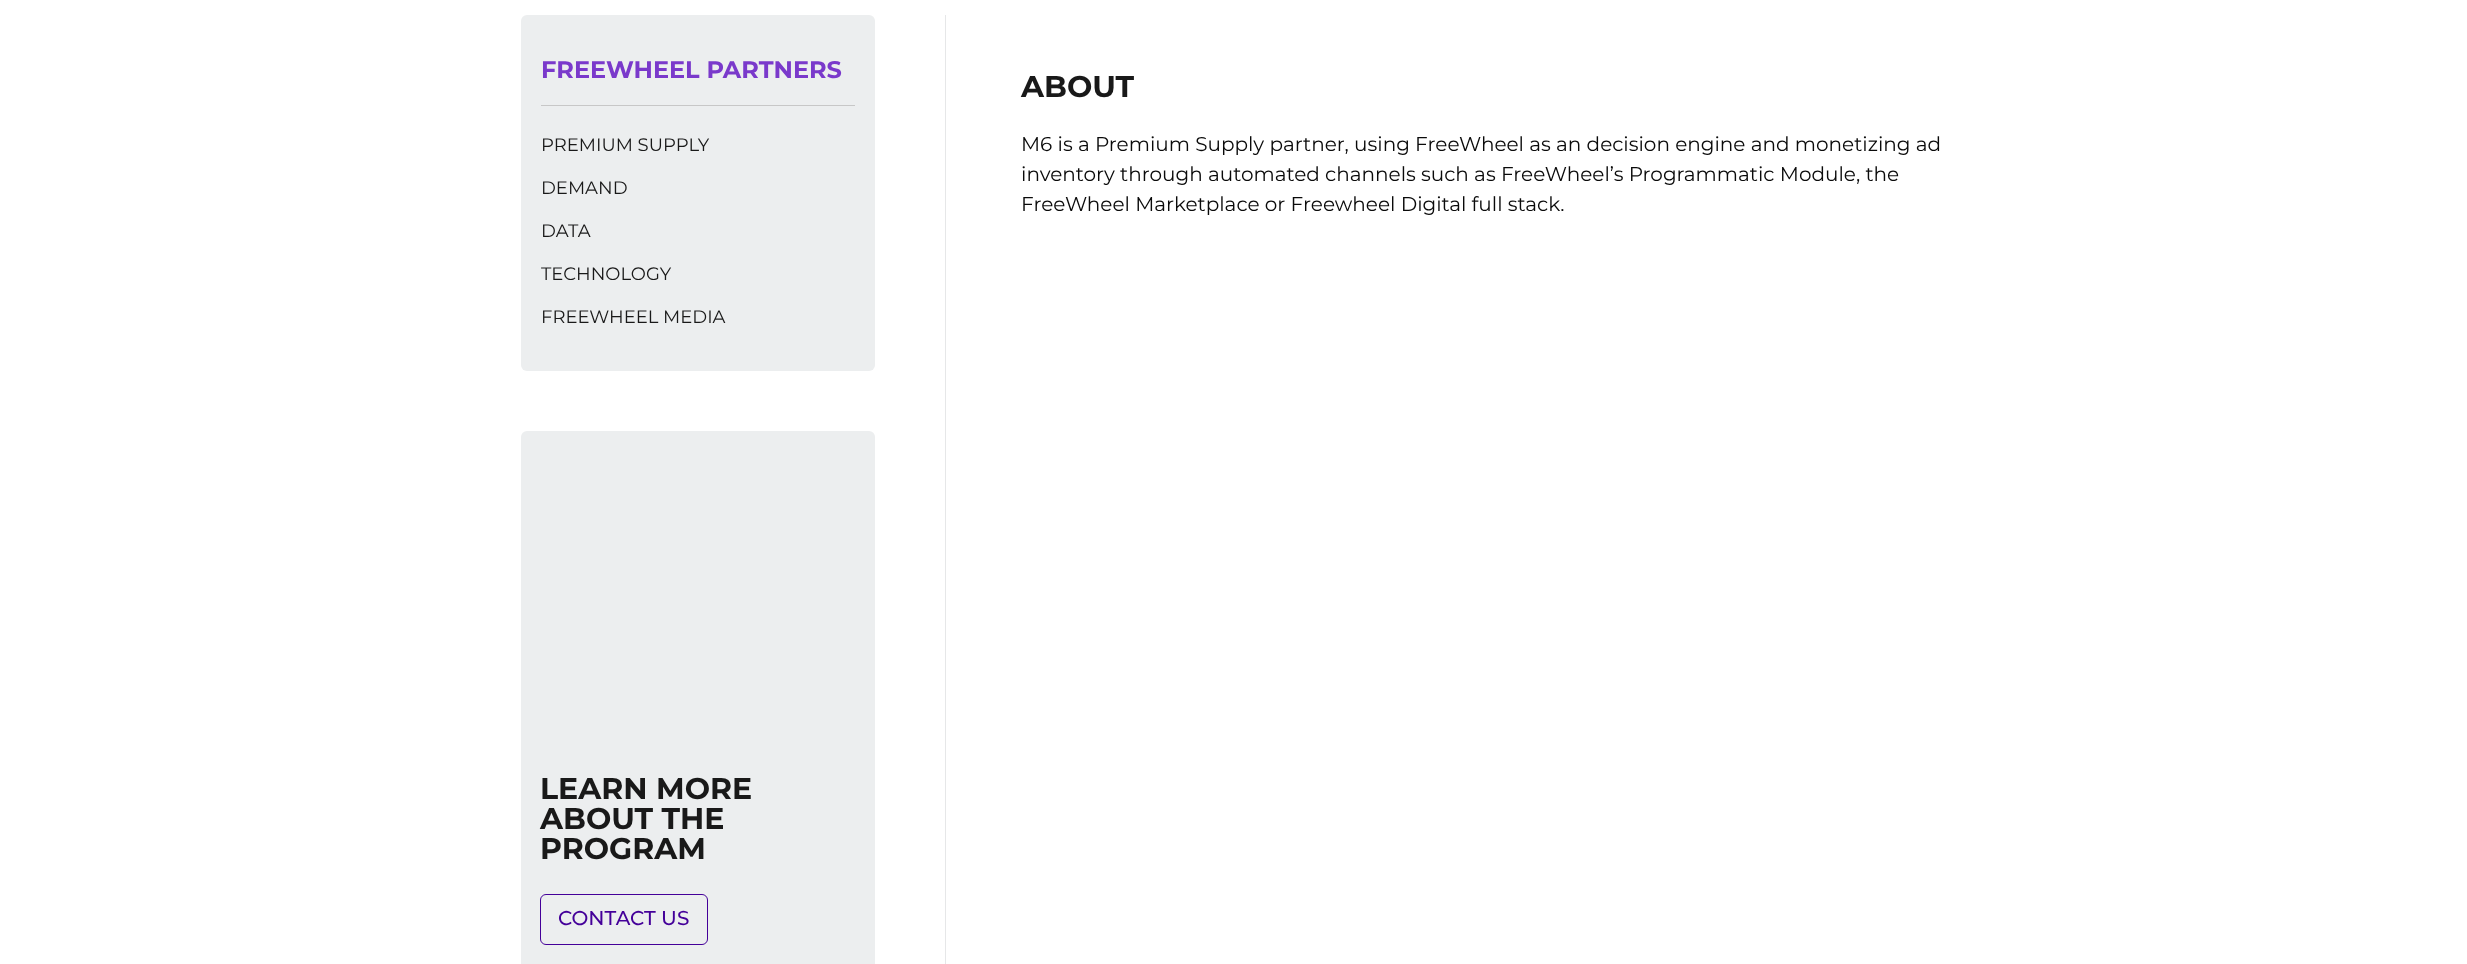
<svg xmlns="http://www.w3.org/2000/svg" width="2467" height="964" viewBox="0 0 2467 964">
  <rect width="100%" height="100%" fill="#fff"/>
  <rect x="521" y="15" width="354" height="356" rx="6" fill="#eceeef"/>
  <path d="M541 105h314v1H541z" fill="#c7c7c7"/>
  <rect x="521" y="431" width="354" height="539" rx="6" fill="#eceeef"/>
  <rect x="540.5" y="894.5" width="167" height="50" rx="5.5" fill="none" stroke="#409"/>
  <path d="M945 15h1v949H945z" fill="#e6e7e8"/>
  <text x="541" y="78" font-family="Montserrat" font-size="24" font-weight="bold" fill="#7a39cb">FREEWHEEL PARTNERS</text>
  <g font-family="Montserrat" font-size="18" fill="#191919">
    <text x="541" y="151">PREMIUM SUPPLY</text>
    <text x="541" y="194">DEMAND</text>
    <text x="541" y="237">DATA</text>
    <text x="541" y="280">TECHNOLOGY</text>
    <text x="541" y="323">FREEWHEEL MEDIA</text>
  </g>
  <g font-family="Montserrat" font-size="30" font-weight="bold" fill="#191919">
    <text x="540" y="799">LEARN MORE</text>
    <text x="540" y="829">ABOUT THE</text>
    <text x="540" y="859">PROGRAM</text>
  </g>
  <text x="558" y="925" font-family="Montserrat" font-size="20" font-weight="500" fill="#409">CONTACT US</text>
  <text x="1021" y="97" font-family="Montserrat" font-size="30" font-weight="bold" fill="#191919">ABOUT</text>
  <g font-family="Montserrat" font-size="20" fill="#0a0a0a">
    <text x="1021" y="151">M6 is a Premium Supply partner, using FreeWheel as an decision engine and monetizing ad</text>
    <text x="1021" y="181">inventory through automated channels such as FreeWheel’s Programmatic Module, the</text>
    <text x="1021" y="211">FreeWheel Marketplace or Freewheel Digital full stack.</text>
  </g>
</svg>
